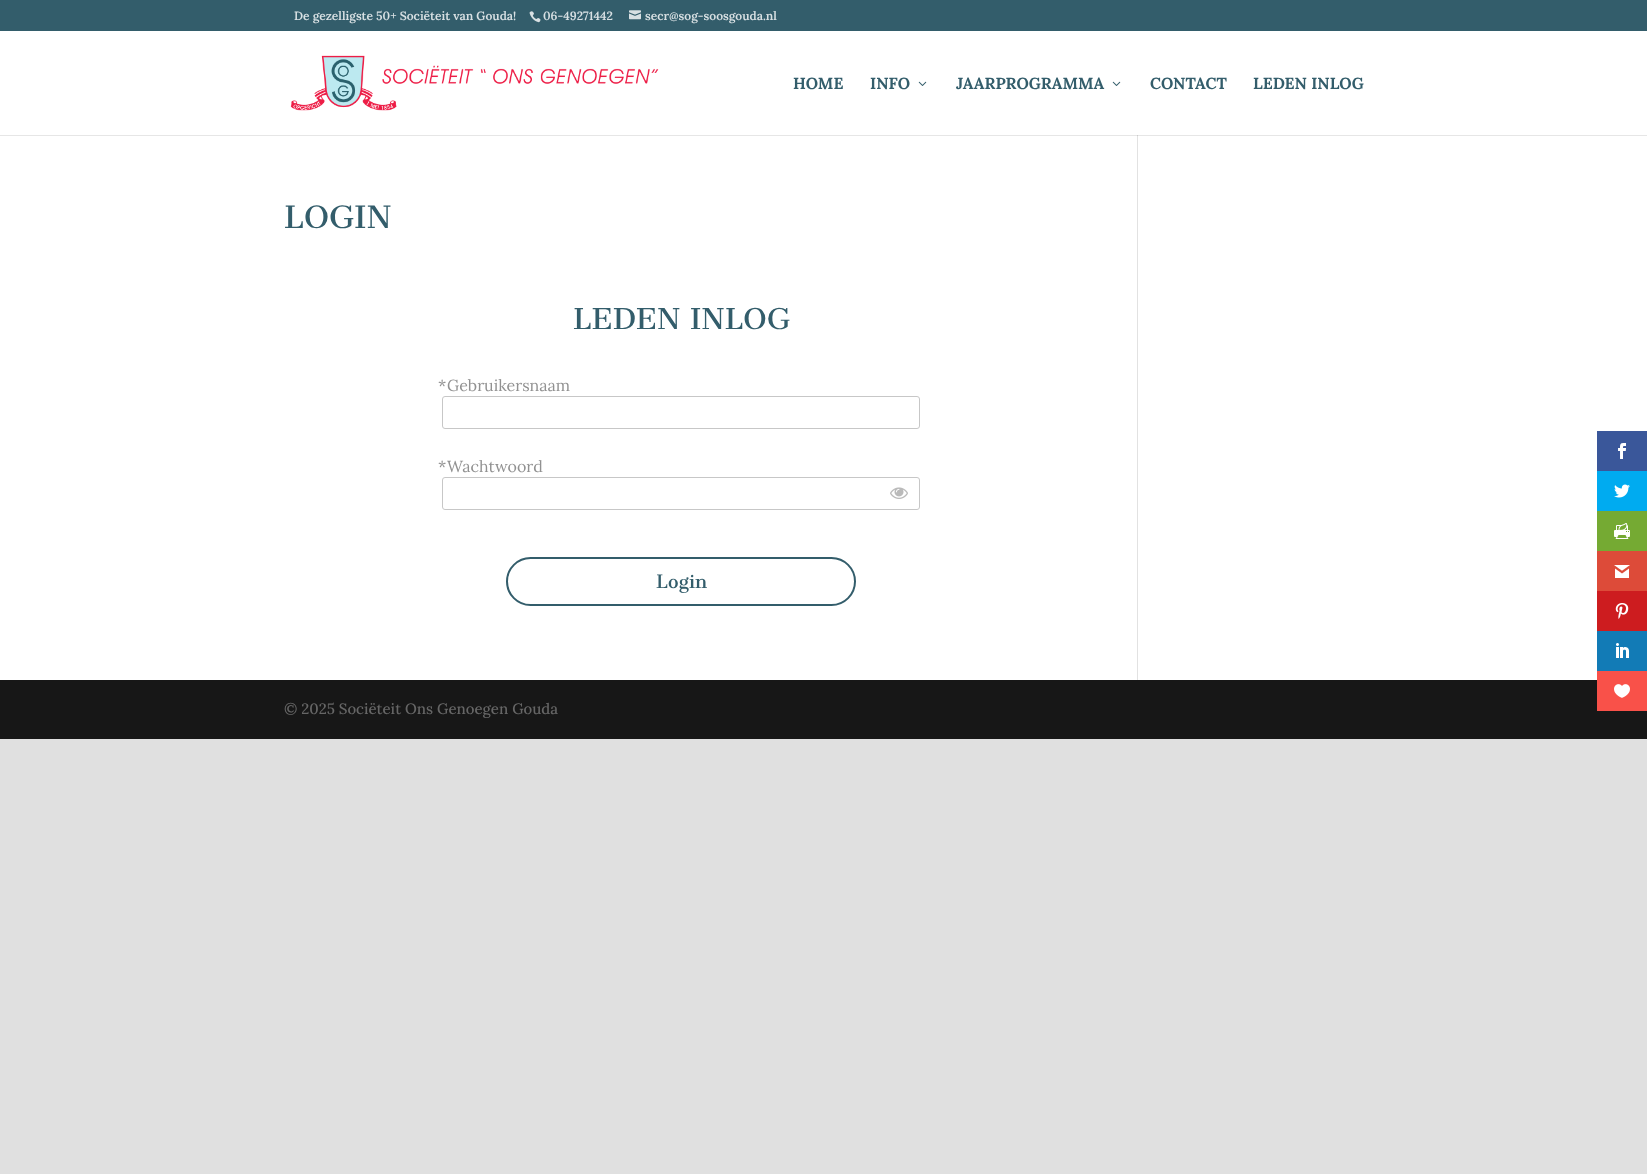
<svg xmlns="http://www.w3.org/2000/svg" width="1647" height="1174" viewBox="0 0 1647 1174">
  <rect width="100%" height="100%" fill="#e0e0e0"/>
  <path d="M0 0h1647v31H0z" fill="#335d6b"/>
  <image x="529" y="11" width="12" height="12" href="img/1.png"/>
  <image x="629" y="10" width="12" height="10" href="img/2.png"/>
  <path d="M0 31h1647v104H0z" fill="#fff"/>
  <image x="290" y="55" width="369" height="56" href="img/3.png"/>
  <image x="918" y="81" width="9" height="5" href="img/4.png"/>
  <image x="1112" y="81" width="9" height="5" href="img/4.png"/>
  <path d="M0 136h1647v544H0z" fill="#fff"/>
  <path d="M0 135h1647v1H0z" fill="#e6e6e6"/>
  <rect x="442.5" y="396.5" width="477" height="32" rx="2.5" fill="none" stroke="#c7c7c7"/>
  <rect x="442.5" y="477.5" width="477" height="32" rx="2.5" fill="none" stroke="#c7c7c7"/>
  <image x="890" y="487" width="18" height="12" href="img/5.png"/>
  <rect x="507" y="558" width="348" height="47" rx="23.5" fill="none" stroke="#335d6b" stroke-width="2"/>
  <path d="M1137 135h1v545H1137z" fill="#e2e2e2"/>
  <path d="M1137 135h1v1H1137z" fill="#cbcbcb"/>
  <path d="M0 680h1647v59H0z" fill="#171717"/>
  <path d="M1597 431h50v40H1597z" fill="#3a579a"/>
  <image x="1618" y="443" width="8" height="16" href="img/6.png"/>
  <path d="M1597 471h50v40H1597z" fill="#00abf0"/>
  <image x="1614" y="484" width="16" height="14" href="img/7.png"/>
  <path d="M1597 511h50v40H1597z" fill="#75aa33"/>
  <image x="1614" y="523" width="16" height="16" href="img/8.png"/>
  <path d="M1597 551h50v40H1597z" fill="#dd4b39"/>
  <image x="1614" y="565" width="16" height="13" href="img/9.png"/>
  <path d="M1597 591h50v40H1597z" fill="#cd1c1f"/>
  <image x="1615" y="603" width="14" height="16" href="img/10.png"/>
  <path d="M1597 631h50v40H1597z" fill="#127bb6"/>
  <image x="1616" y="643" width="13" height="15" href="img/11.png"/>
  <path d="M1597 671h50v40H1597z" fill="#f95149"/>
  <image x="1614" y="684" width="16" height="14" href="img/12.png"/>
  <g font-family="Lora" font-size="12" font-weight="600" fill="#d8e0e3">
    <text x="294" y="20">De gezelligste 50+ Sociëteit van Gouda!</text>
    <text x="543" y="20">06-49271442</text>
    <text x="645" y="20">secr@sog-soosgouda.nl</text>
  </g>
  <g font-family="Lora" font-size="16" font-weight="bold" fill="#335d6b">
    <text x="793" y="89">HOME</text>
    <text x="870" y="89">INFO</text>
    <text x="956" y="89">JAARPROGRAMMA</text>
    <text x="1150" y="89">CONTACT</text>
    <text x="1253" y="89">LEDEN INLOG</text>
  </g>
  <text x="284" y="228" font-family="Cantata One" font-size="30" fill="#335d6b">LOGIN</text>
  <text x="573" y="329" font-family="Cantata One" font-size="28" fill="#335d6b">LEDEN INLOG</text>
  <g font-family="Lora" font-size="16" fill="#919191">
    <text x="438" y="391">*</text>
    <text x="447" y="391">Gebruikersnaam</text>
    <text x="438" y="472">*</text>
    <text x="447" y="472">Wachtwoord</text>
  </g>
  <text x="656" y="588" font-family="Cantata One" font-size="18" fill="#335d6b">Login</text>
  <text x="284" y="714" font-family="Lora" font-size="15" font-weight="500" fill="#666">© 2025 Sociëteit Ons Genoegen Gouda</text>
</svg>
